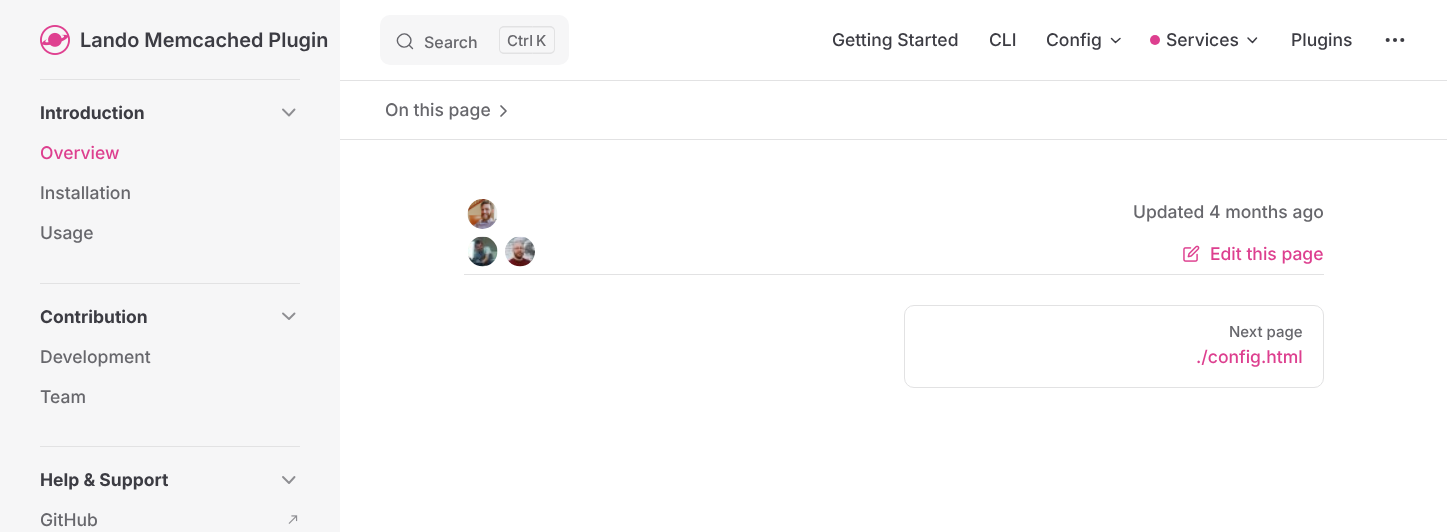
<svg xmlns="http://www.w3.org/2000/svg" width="1447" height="532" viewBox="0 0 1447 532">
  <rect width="100%" height="100%" fill="#fff"/>
  <path d="M0 0h340v532H0z" fill="#f6f6f7"/>
  <path d="M40 79h260v1H40z" fill="#e2e2e3"/>
  <image x="40" y="25" width="30" height="30" href="img/1.png"/>
  <rect x="380" y="15" width="189" height="50" rx="10" fill="#f6f6f7"/>
  <path d="M409 45L412.5 48.5L409 45C402.5 51.5 393 41.5 399.5 36C406 30 415 39 409 45Z" fill="none" stroke="#65656b" stroke-width="1.4" stroke-linecap="round" stroke-linejoin="round"/>
  <path d="M504 26H532.5V54H504C501 54 499 51.5 499 49V31C499 28.5 501 26 504 26ZM504 27.5H532.5V52.5H504C501.5 52.5 500 51 500 49V31C500 29 501.5 27.5 504 27.5Z" fill="#e2e2e3" fill-rule="evenodd"/>
  <path d="M532.5 26H550C553 26 555 28.5 555 31V49C555 51.5 553 54 550 54H532.5ZM532.5 27.5H550C552 27.5 554 29 554 31V49C554 51 552 52.5 550 52.5H532.5Z" fill="#e2e2e3" fill-rule="evenodd"/>
  <path d="M1111.5 38.5L1115.5 42.5L1120 38.5" fill="none" stroke="#3c3c43" stroke-width="1.5" stroke-linecap="round" stroke-linejoin="round"/>
  <circle cx="1155" cy="40" r="5" fill="#dd3f8f"/>
  <path d="M1248 38L1252.5 42.5L1256.5 38" fill="none" stroke="#3c3c43" stroke-width="1.5" stroke-linecap="round" stroke-linejoin="round"/>
  <circle cx="1395" cy="40" r="1" fill="none" stroke="#3c3c43" stroke-width="2.1"/>
  <circle cx="1402.3" cy="40" r="1" fill="none" stroke="#3c3c43" stroke-width="2.1"/>
  <circle cx="1387.7" cy="40" r="1" fill="none" stroke="#3c3c43" stroke-width="2.1"/>
  <path d="M340 80h1107v1H340z" fill="#e2e2e3"/>
  <path d="M283 109.5L289 115.5L294.5 109.5" fill="none" stroke="#8e8e92" stroke-width="1.9" stroke-linecap="round" stroke-linejoin="round"/>
  <path d="M40 283h260v1H40z" fill="#e2e2e3"/>
  <path d="M283 313.5L289 319L294.5 313.5" fill="none" stroke="#8e8e92" stroke-width="1.9" stroke-linecap="round" stroke-linejoin="round"/>
  <path d="M40 446h260v1H40z" fill="#e2e2e3"/>
  <path d="M283 477L289 483L294.5 477" fill="none" stroke="#8e8e92" stroke-width="1.9" stroke-linecap="round" stroke-linejoin="round"/>
  <image x="288" y="515" width="10" height="9" href="img/2.png"/>
  <path d="M340 139h1107v1H340z" fill="#e2e2e3"/>
  <path d="M501 116L506 111L501 106" fill="none" stroke="#67676c" stroke-width="1.7" stroke-linecap="round" stroke-linejoin="round"/>
  <image x="467" y="199" width="31" height="30" href="img/3.png"/>
  <image x="468" y="236" width="30" height="31" href="img/4.png"/>
  <image x="505" y="236" width="30" height="31" href="img/5.png"/>
  <image x="1183" y="245" width="17" height="17" href="img/6.png"/>
  <path d="M464 274h860v1H464z" fill="#e2e2e3"/>
  <rect x="904.5" y="305.5" width="419" height="82" rx="9.5" fill="none" stroke="#e2e2e3"/>
  <text x="80" y="47" font-family="Inter" font-size="20" font-weight="600" fill="#3c3c43">Lando Memcached Plugin</text>
  <text x="424" y="48" font-family="Inter" font-size="16" font-weight="500" fill="#67676c">Search</text>
  <g font-family="Inter" font-size="15" font-weight="500" fill="#67676c">
    <text x="507" y="46">Ctrl</text>
    <text x="536" y="46">K</text>
  </g>
  <g font-family="Inter" font-size="17.5" font-weight="500" fill="#3c3c43">
    <text x="832" y="46">Getting Started</text>
    <text x="989" y="46">CLI</text>
    <text x="1046" y="46">Config</text>
    <text x="1166" y="46">Services</text>
    <text x="1291" y="46">Plugins</text>
  </g>
  <text x="40" y="119" font-family="Inter" font-size="17.5" font-weight="bold" fill="#3c3c43">Introduction</text>
  <text x="40" y="159" font-family="Inter" font-size="17.5" font-weight="500" fill="#dd3f8f">Overview</text>
  <g font-family="Inter" font-size="17.5" font-weight="500" fill="#67676c">
    <text x="40" y="199">Installation</text>
    <text x="40" y="239">Usage</text>
  </g>
  <text x="40" y="323" font-family="Inter" font-size="17.5" font-weight="bold" fill="#3c3c43">Contribution</text>
  <g font-family="Inter" font-size="17.5" font-weight="500" fill="#67676c">
    <text x="40" y="363">Development</text>
    <text x="40" y="403">Team</text>
  </g>
  <text x="40" y="486" font-family="Inter" font-size="17.5" font-weight="bold" fill="#3c3c43">Help &amp; Support</text>
  <g font-family="Inter" font-size="17.5" font-weight="500" fill="#67676c">
    <text x="40" y="526">GitHub</text>
    <text x="385" y="116">On this page</text>
    <text x="1133" y="218">Updated 4 months ago</text>
  </g>
  <text x="1210" y="260" font-family="Inter" font-size="17.5" font-weight="500" fill="#dd3f8f">Edit this page</text>
  <text x="1229" y="337" font-family="Inter" font-size="15" font-weight="500" fill="#67676c">Next page</text>
  <text x="1196" y="363" font-family="Inter" font-size="17.5" font-weight="500" fill="#dd3f8f">./config.html</text>
</svg>
